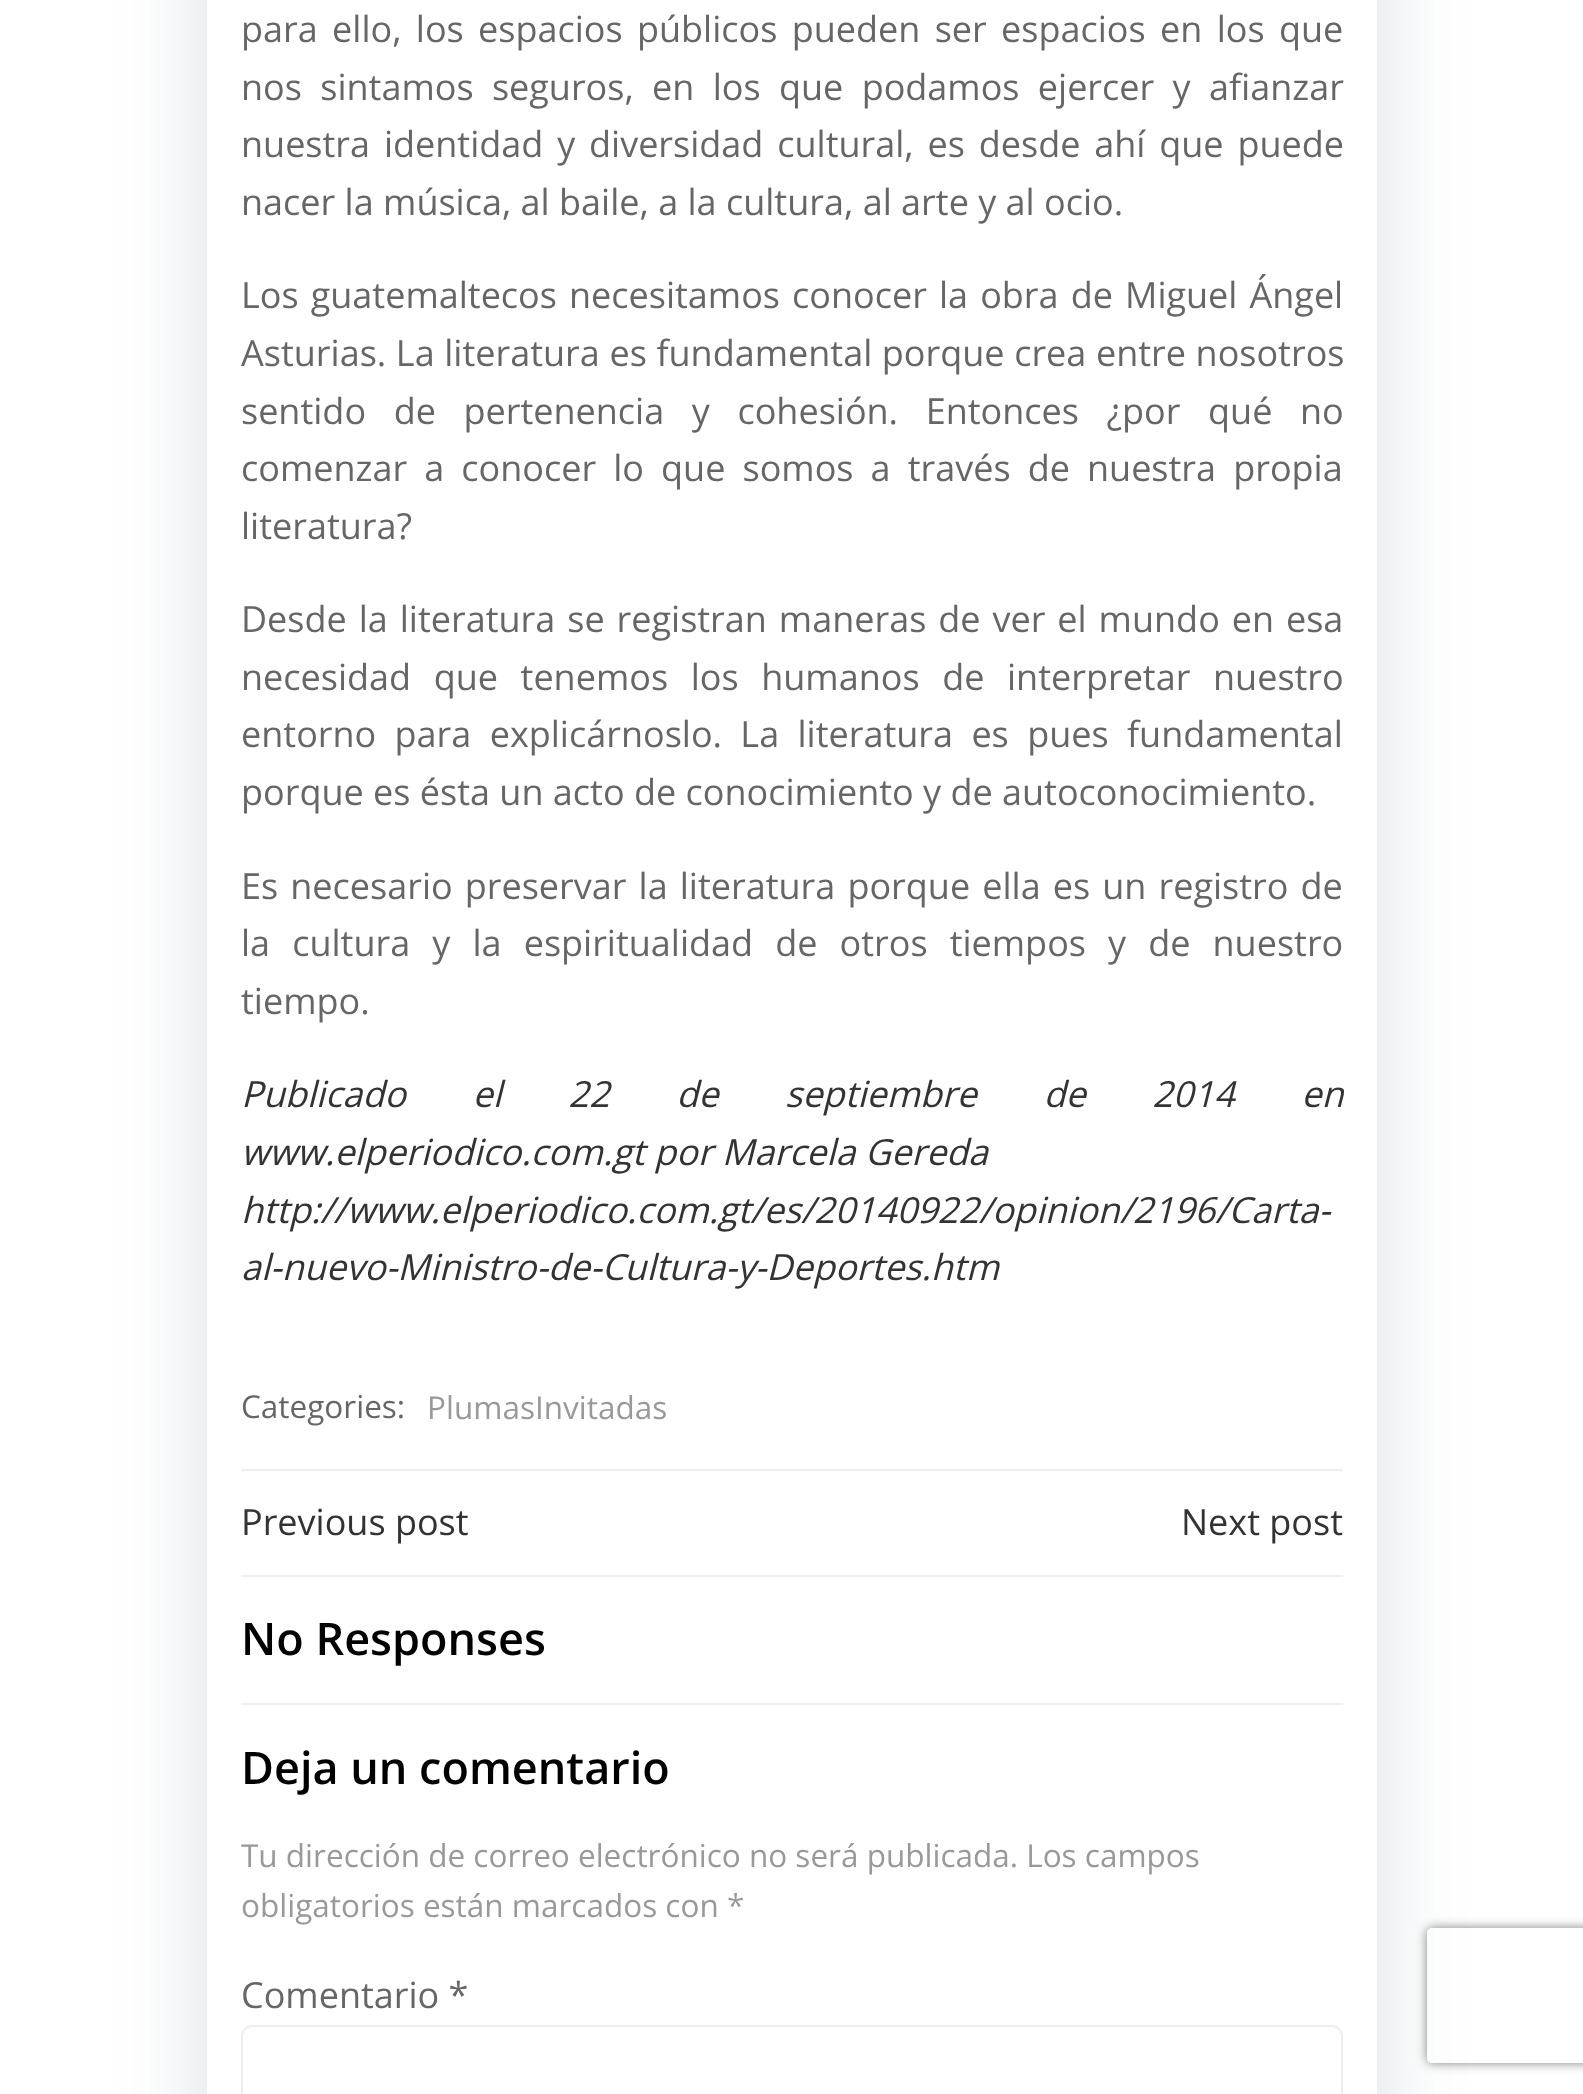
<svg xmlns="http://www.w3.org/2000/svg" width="1583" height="2094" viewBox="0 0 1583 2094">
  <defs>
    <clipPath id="clip1"><path d="M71 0H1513V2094H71ZM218-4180H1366C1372-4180 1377-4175 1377-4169V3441C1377 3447 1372 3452 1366 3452H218C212 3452 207 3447 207 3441V-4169C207-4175 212-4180 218-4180Z" clip-rule="evenodd"/></clipPath>
    <clipPath id="clip2"><path d="M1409 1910H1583V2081H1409ZM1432 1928H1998C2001 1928 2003 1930 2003 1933V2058C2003 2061 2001 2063 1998 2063H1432C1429 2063 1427 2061 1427 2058V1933C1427 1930 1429 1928 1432 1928Z" clip-rule="evenodd"/></clipPath>
  </defs>
  <rect width="100%" height="100%" fill="#fff"/>
  <g clip-path="url(#clip1)">
    <rect x="207" y="-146" width="1170" height="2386" rx="11" fill="#01334a26" filter="blur(45px)"/>
  </g>
  <path d="M241 1469h1102v2H241z" fill="#eee"/>
  <path d="M241 1575h1102v2H241z" fill="#eee"/>
  <path d="M241 1703h1102v2H241z" fill="#eee"/>
  <rect x="242" y="2026" width="1100" height="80" rx="10" fill="none" stroke="#eee" stroke-width="2"/>
  <g clip-path="url(#clip2)">
    <rect x="1427" y="1928" width="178" height="135" rx="5" fill="#808080" filter="blur(5.5px)"/>
  </g>
  <g font-family="Open Sans" font-size="36" fill="#666">
    <text x="241" y="42" word-spacing="5">para ello, los espacios públicos pueden ser espacios en los que</text>
    <text x="241" y="100" word-spacing="9">nos sintamos seguros, en los que podamos ejercer y afianzar</text>
    <text x="241" y="157" word-spacing="4.5">nuestra identidad y diversidad cultural, es desde ahí que puede</text>
    <text x="241" y="215">nacer la música, al baile, a la cultura, al arte y al ocio.</text>
    <text x="241" y="308" word-spacing="2.75">Los guatemaltecos necesitamos conocer la obra de Miguel Ángel</text>
    <text x="241" y="366" word-spacing="0.25">Asturias. La literatura es fundamental porque crea entre nosotros</text>
    <text x="241" y="424" word-spacing="18.25">sentido de pertenencia y cohesión. Entonces ¿por qué no</text>
    <text x="241" y="481" word-spacing="7.75">comenzar a conocer lo que somos a través de nuestra propia</text>
    <text x="241" y="539">literatura?</text>
    <text x="241" y="632" word-spacing="2.6">Desde la literatura se registran maneras de ver el mundo en esa</text>
    <text x="241" y="690" word-spacing="13.25">necesidad que tenemos los humanos de interpretar nuestro</text>
    <text x="241" y="747" word-spacing="9">entorno para explicárnoslo. La literatura es pues fundamental</text>
    <text x="241" y="805">porque es ésta un acto de conocimiento y de autoconocimiento.</text>
    <text x="241" y="899" word-spacing="2.75">Es necesario preservar la literatura porque ella es un registro de</text>
    <text x="241" y="956" word-spacing="12.75">la cultura y la espiritualidad de otros tiempos y de nuestro</text>
    <text x="241" y="1014">tiempo.</text>
  </g>
  <g font-family="Open Sans" font-size="36" font-style="italic" fill="#333">
    <text x="241" y="1107" word-spacing="57.25">Publicado el 22 de septiembre de 2014 en</text>
    <text x="241" y="1165">www.elperiodico.com.gt por Marcela Gereda</text>
    <text x="241" y="1223">http://www.elperiodico.com.gt/es/20140922/opinion/2196/Carta-</text>
    <text x="241" y="1280">al-nuevo-Ministro-de-Cultura-y-Deportes.htm</text>
  </g>
  <text x="241" y="1418" font-family="Open Sans" font-size="31.5" fill="#666">Categories:</text>
  <text x="427" y="1419" font-family="Open Sans" font-size="31.5" fill="#999">PlumasInvitadas</text>
  <g font-family="Open Sans" font-size="36" fill="#333">
    <text x="241" y="1535">Previous post</text>
    <text x="1181" y="1535">Next post</text>
  </g>
  <g font-family="Open Sans" font-size="45" font-weight="600" fill="#000">
    <text x="241" y="1655">No Responses</text>
    <text x="241" y="1784">Deja un comentario</text>
  </g>
  <g font-family="Open Sans" font-size="31.5" fill="#999">
    <text x="241" y="1867">Tu dirección de correo electrónico no será publicada. Los campos</text>
    <text x="241" y="1917">obligatorios están marcados con *</text>
  </g>
  <text x="241" y="2008" font-family="Open Sans" font-size="36" fill="#666">Comentario *</text>
</svg>
